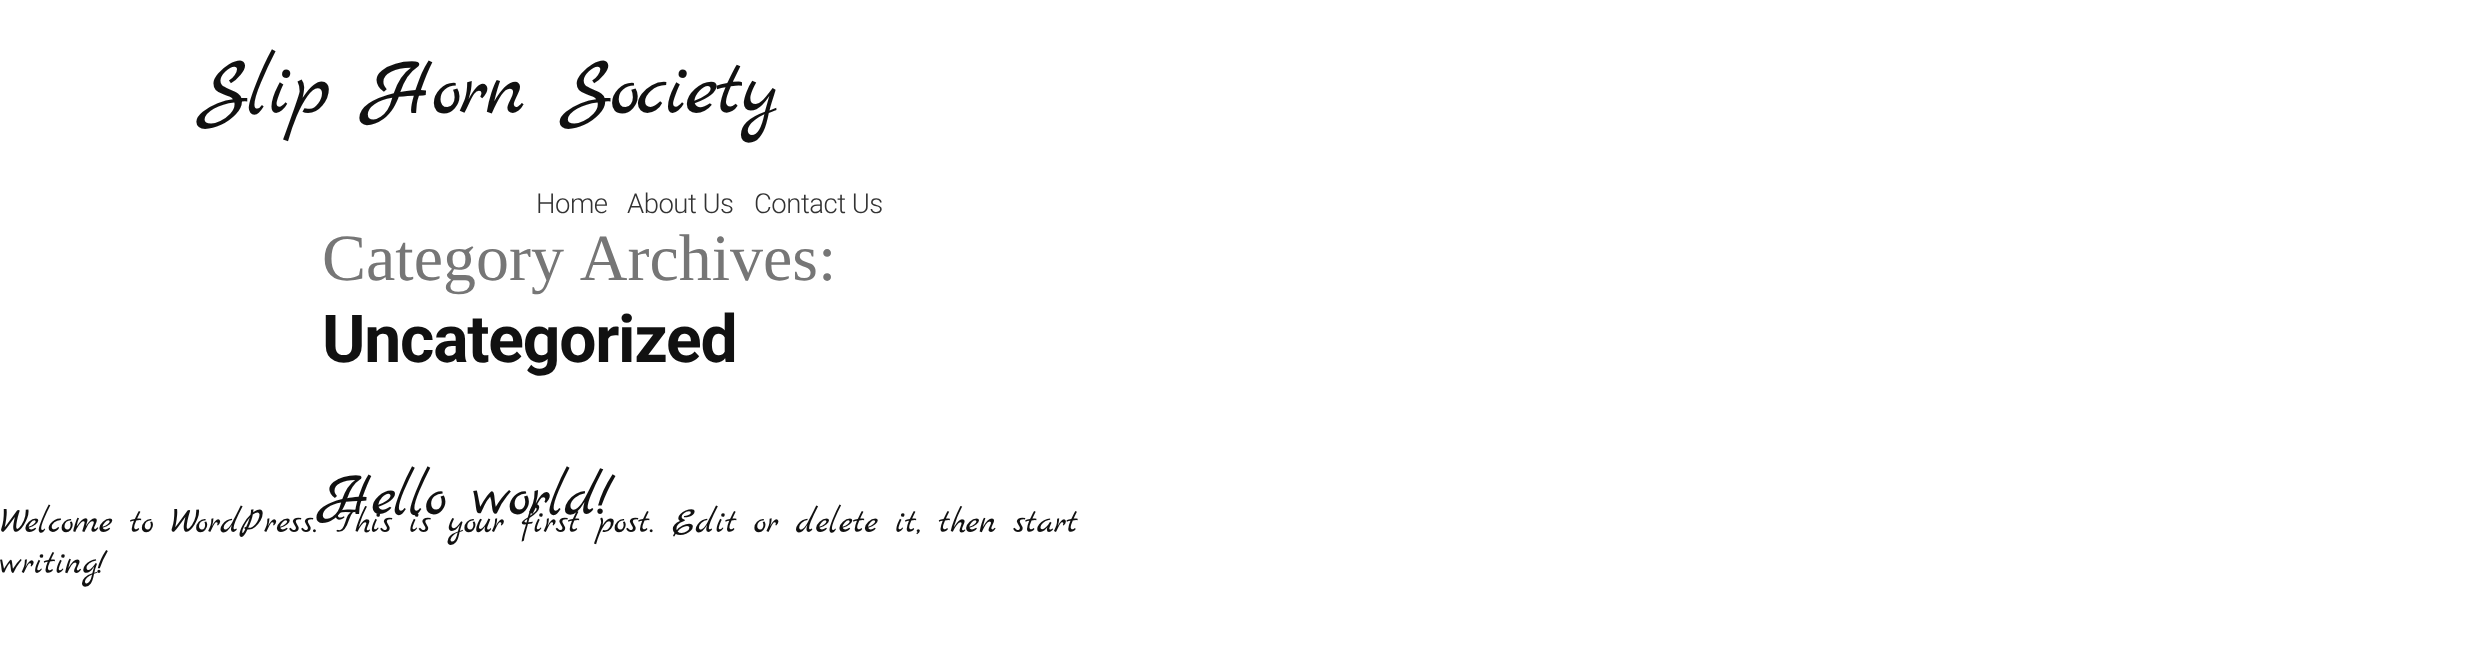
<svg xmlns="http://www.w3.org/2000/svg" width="2469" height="651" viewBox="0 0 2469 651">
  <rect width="100%" height="100%" fill="#fff"/>
  <text x="198" y="113" font-family="Marck Script" font-size="82.5" letter-spacing="-1.6" fill="#111">Slip Horn Society</text>
  <g font-family="Roboto" font-size="27.5" font-weight="300" letter-spacing="-0.5" fill="#333">
    <text x="536" y="213">Home</text>
    <text x="627" y="213">About Us</text>
    <text x="754" y="213">Contact Us</text>
  </g>
  <text x="322" y="280" word-spacing="3" font-family="Liberation Serif" font-size="66" fill="#767676">Category Archives:</text>
  <text x="322" y="362" font-family="Roboto" font-size="66" font-weight="bold" letter-spacing="-1.25" fill="#111">Uncategorized</text>
  <text x="0" y="532" font-family="Marck Script" font-size="35.75" fill="#111">Welcome to WordPress. This is your first post. Edit or delete it, then start</text>
  <text x="322" y="514" font-family="Marck Script" font-size="62" letter-spacing="-1.25" fill="#111">Hello world!</text>
  <text x="0" y="573" font-family="Marck Script" font-size="35.75" fill="#111">writing!</text>
</svg>
